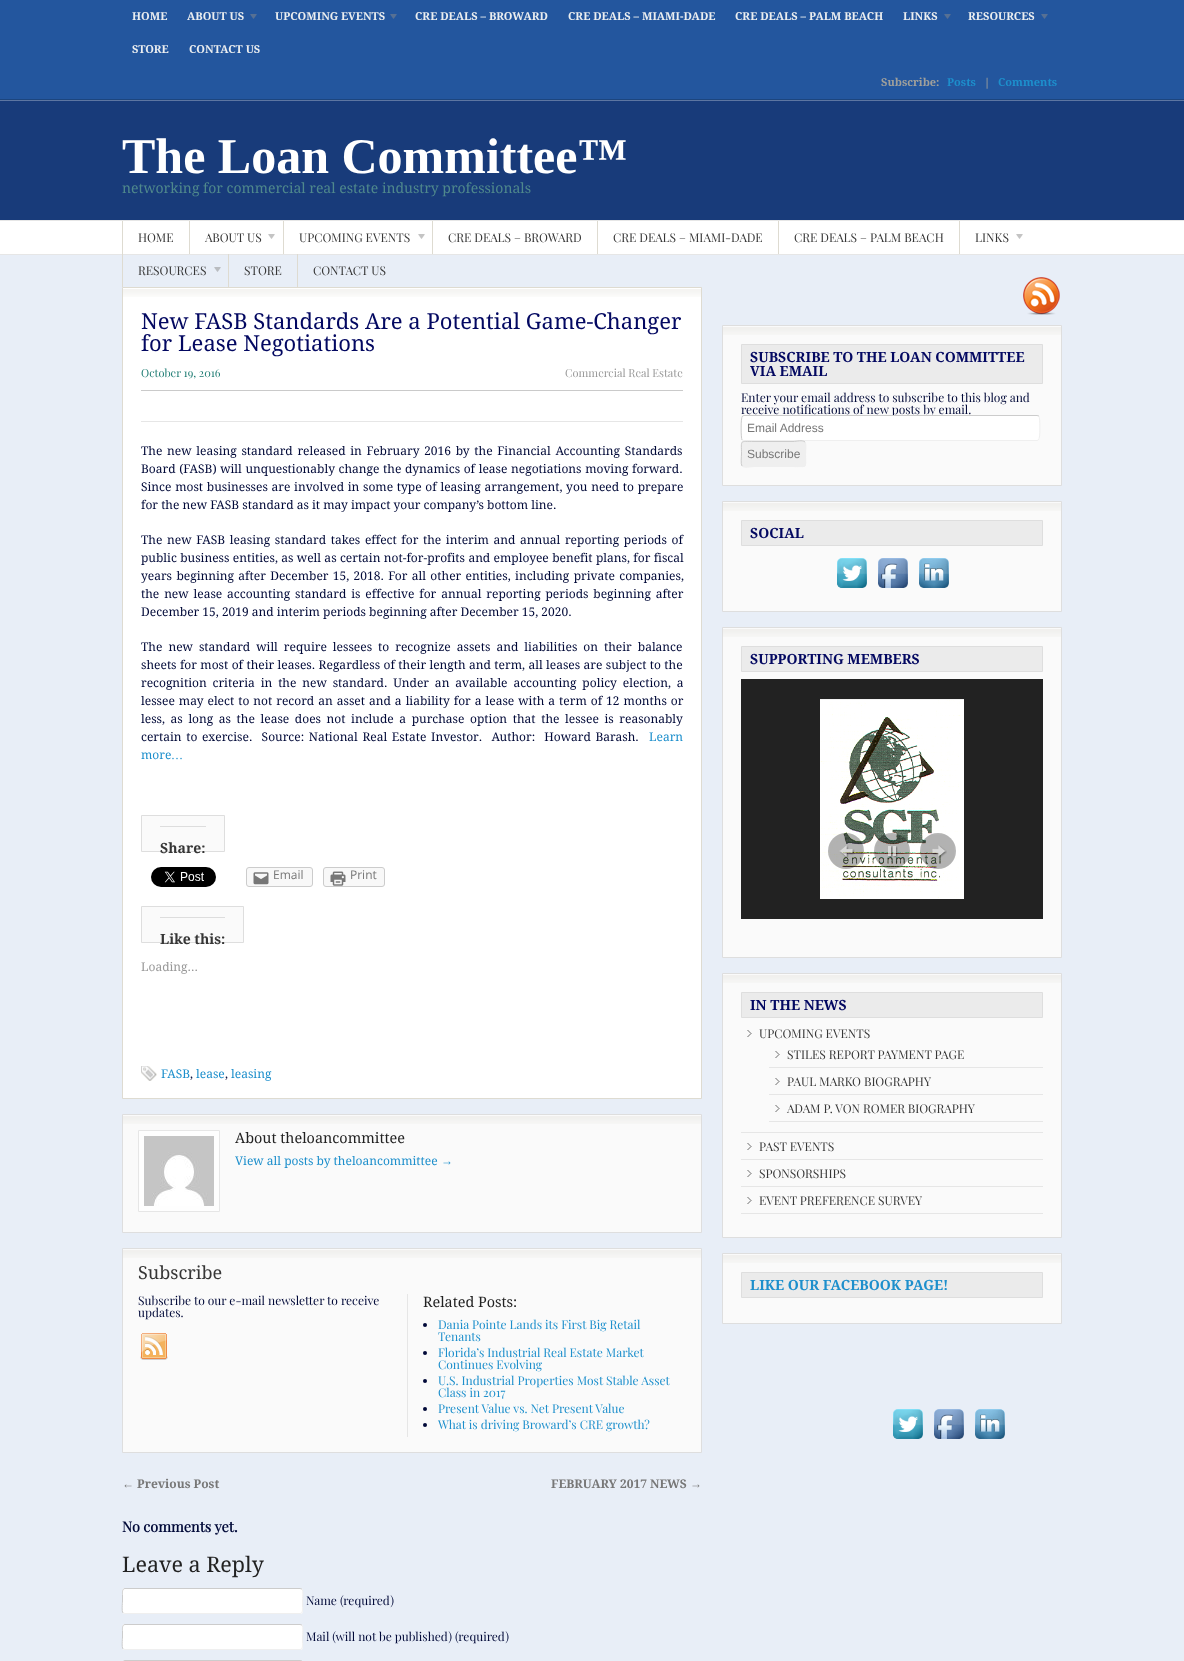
<svg xmlns="http://www.w3.org/2000/svg" width="1184" height="1661" viewBox="0 0 1184 1661">
  <rect width="100%" height="100%" fill="#e8eef7"/>
  <path d="M0 0h1184v99H0z" fill="#23569e"/>
  <path d="M0 99h1184v1H0z" fill="#1c457e"/>
  <image x="250" y="14" width="7" height="5" href="img/1.png"/>
  <image x="390" y="14" width="7" height="5" href="img/1.png"/>
  <image x="944" y="14" width="7" height="5" href="img/1.png"/>
  <image x="1041" y="14" width="7" height="5" href="img/1.png"/>
  <path d="M0 101h1184v119H0z" fill="#183b7a"/>
  <path d="M0 100h1184v1H0z" fill="#5d76a2"/>
  <path d="M0 221h1184v33H0z" fill="#fff"/>
  <path d="M0 220h1184v1H0z" fill="#e6e6e6"/>
  <path d="M0 254h1184v1H0z" fill="#e6e6e6"/>
  <path d="M122 221h1v66H122z" fill="#dedbd1"/>
  <path d="M189 221h1v33H189z" fill="#dedbd1"/>
  <image x="268" y="234" width="7" height="5" href="img/2.png"/>
  <path d="M283 221h1v33H283z" fill="#dedbd1"/>
  <image x="418" y="234" width="7" height="5" href="img/2.png"/>
  <path d="M432 221h1v33H432z" fill="#dedbd1"/>
  <path d="M597 221h1v33H597z" fill="#dedbd1"/>
  <path d="M778 221h1v33H778z" fill="#dedbd1"/>
  <path d="M959 221h1v33H959z" fill="#dedbd1"/>
  <image x="1016" y="234" width="7" height="5" href="img/2.png"/>
  <image x="214" y="267" width="7" height="5" href="img/3.png"/>
  <path d="M228 254h1v33H228z" fill="#dedbd1"/>
  <path d="M297 254h1v33H297z" fill="#dedbd1"/>
  <image x="1023" y="277" width="37" height="38" href="img/4.png"/>
  <path d="M123 288h578v810H123z" fill="#fff"/>
  <image x="123" y="289" width="578" height="8" href="img/5.png"/>
  <path d="M122.5 287.5h579v811H122.5z" fill="none" stroke="#dedbd1"/>
  <path d="M141 390h542v1H141z" fill="#cacaca"/>
  <path d="M141 421h542v1H141z" fill="#e6e6e6"/>
  <path d="M141.5 815.5h83v36H141.5z" fill="#fafafa" stroke="#dedede"/>
  <path d="M160 826h46v1H160z" fill="#ddd"/>
  <image x="151" y="867" width="65" height="20" href="img/6.png"/>
  <rect x="246.5" y="867.5" width="66" height="19" rx="2.5" fill="#f8f8f8" stroke="#ccc"/>
  <image x="253" y="872" width="16" height="13" href="img/7.png"/>
  <rect x="323.5" y="867.5" width="61" height="19" rx="2.5" fill="#f8f8f8" stroke="#ccc"/>
  <image x="330" y="871" width="16" height="15" href="img/8.png"/>
  <path d="M141.5 906.5h102v36H141.5z" fill="#fafafa" stroke="#dedede"/>
  <path d="M160 917h65v1H160z" fill="#ddd"/>
  <image x="141" y="1066" width="16" height="15" href="img/9.png"/>
  <path d="M123 1115h578v117H123z" fill="#fafafa"/>
  <image x="123" y="1116" width="578" height="8" href="img/10.png"/>
  <path d="M122.5 1114.5h579v118H122.5z" fill="none" stroke="#dedede"/>
  <path d="M138.5 1130.5h81v81H138.5z" fill="#fefefe" stroke="#e6e6e6"/>
  <image x="144" y="1136" width="70" height="70" href="img/11.png"/>
  <path d="M123 1249h578v203H123z" fill="#fafafa"/>
  <image x="123" y="1250" width="578" height="8" href="img/10.png"/>
  <path d="M122.5 1248.5h579v204H122.5z" fill="none" stroke="#dedede"/>
  <image x="140" y="1333" width="28" height="27" href="img/12.png"/>
  <path d="M407 1294h1v143H407z" fill="#e6e6e6"/>
  <circle cx="425" cy="1325" r="2" fill="#010938"/>
  <circle cx="425" cy="1353" r="2" fill="#010938"/>
  <circle cx="425" cy="1381" r="2" fill="#010938"/>
  <circle cx="425" cy="1409" r="2" fill="#010938"/>
  <circle cx="425" cy="1425" r="2" fill="#010938"/>
  <rect x="122" y="1588" width="181" height="26" rx="3" fill="#fff"/>
  <path d="M302 1589C303.5 1591 302.5 1598.5 302.5 1601V1607.5C302.5 1609.5 303 1613.5 300 1613.5H125L123 1613" fill="none" stroke="#efefef"/>
  <path d="M123 1613C121.5 1611 122.5 1603.5 122.5 1601V1594.5C122.5 1592.5 122 1588.5 125 1588.5H300L302 1589" fill="none" stroke="#ccc"/>
  <rect x="122" y="1624" width="181" height="26" rx="3" fill="#fff"/>
  <path d="M302 1625C303.5 1627 302.5 1634.5 302.5 1637V1643.5C302.5 1645.5 303 1649.5 300 1649.5H125L123 1649" fill="none" stroke="#efefef"/>
  <path d="M123 1649C121.5 1647 122.5 1639.5 122.5 1637V1630.5C122.5 1628.5 122 1624.5 125 1624.5H300L302 1625" fill="none" stroke="#ccc"/>
  <path d="M123 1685C121.5 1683 122.5 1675.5 122.5 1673V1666.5C122.5 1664.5 122 1660.5 125 1660.5H300L302 1661" fill="none" stroke="#ccc"/>
  <path d="M723 326h338v159H723z" fill="#fafafa"/>
  <image x="723" y="327" width="338" height="8" href="img/13.png"/>
  <path d="M722.5 325.5h339v160H722.5z" fill="none" stroke="#dedede"/>
  <path d="M741.5 344.5h301v39H741.5z" fill="#ebebeb" stroke="#dedede"/>
  <rect x="741" y="441" width="65" height="26" rx="3" fill="#efefef"/>
  <path d="M805 442C806.5 444 805.5 451.5 805.5 454C805.5 468.5 808 466.5 793 466.5H754C750 466.5 745 468.5 742 466" fill="none" stroke="#efefef"/>
  <path d="M723 502h338v109H723z" fill="#fafafa"/>
  <image x="723" y="503" width="338" height="8" href="img/13.png"/>
  <path d="M722.5 501.5h339v110H722.5z" fill="none" stroke="#dedede"/>
  <path d="M741.5 520.5h301v25H741.5z" fill="#ebebeb" stroke="#dedede"/>
  <image x="837" y="558" width="30" height="30" href="img/14.png"/>
  <image x="878" y="558" width="30" height="30" href="img/15.png"/>
  <image x="919" y="558" width="30" height="30" href="img/16.png"/>
  <path d="M723 628h338v329H723z" fill="#fafafa"/>
  <image x="723" y="629" width="338" height="8" href="img/13.png"/>
  <path d="M722.5 627.5h339v330H722.5z" fill="none" stroke="#dedede"/>
  <path d="M741.5 646.5h301v25H741.5z" fill="#ebebeb" stroke="#dedede"/>
  <path d="M751 689h282v220H751z" fill="#222" stroke="#222" stroke-width="20"/>
  <image x="820" y="699" width="144" height="200" href="img/17.png"/>
  <circle cx="846" cy="851" r="18" fill="#0000004d"/>
  <image x="839" y="845" width="16" height="13" href="img/18.png"/>
  <path d="M829 834h34v34H829z" fill="none" stroke="#ffffff0d" stroke-width="2"/>
  <circle cx="892" cy="851" r="18" fill="#0000004d"/>
  <image x="888" y="846" width="10" height="12" href="img/19.png"/>
  <path d="M875 834h34v34H875z" fill="none" stroke="#ffffff0d" stroke-width="2"/>
  <circle cx="938" cy="851" r="18" fill="#0000004d"/>
  <image x="932" y="845" width="15" height="13" href="img/20.png"/>
  <path d="M921 834h34v34H921z" fill="none" stroke="#ffffff0d" stroke-width="2"/>
  <path d="M723 974h338v263H723z" fill="#fafafa"/>
  <image x="723" y="975" width="338" height="8" href="img/13.png"/>
  <path d="M722.5 973.5h339v264H722.5z" fill="none" stroke="#dedede"/>
  <path d="M741.5 992.5h301v25H741.5z" fill="#ebebeb" stroke="#dedede"/>
  <image x="747" y="1030" width="5" height="7" href="img/21.png"/>
  <path d="M741 1132h302v1H741z" fill="#e6e6e6"/>
  <image x="775" y="1051" width="5" height="7" href="img/21.png"/>
  <path d="M769 1067h274v1H769z" fill="#e6e6e6"/>
  <image x="775" y="1078" width="5" height="7" href="img/21.png"/>
  <path d="M769 1094h274v1H769z" fill="#e6e6e6"/>
  <image x="775" y="1105" width="5" height="7" href="img/21.png"/>
  <path d="M769 1121h274v1H769z" fill="#e6e6e6"/>
  <image x="747" y="1143" width="5" height="7" href="img/21.png"/>
  <path d="M741 1159h302v1H741z" fill="#e6e6e6"/>
  <image x="747" y="1170" width="5" height="7" href="img/21.png"/>
  <path d="M741 1186h302v1H741z" fill="#e6e6e6"/>
  <image x="747" y="1197" width="5" height="7" href="img/21.png"/>
  <path d="M741 1213h302v1H741z" fill="#e6e6e6"/>
  <path d="M723 1254h338v69H723z" fill="#fafafa"/>
  <image x="723" y="1255" width="338" height="8" href="img/13.png"/>
  <path d="M722.5 1253.5h339v70H722.5z" fill="none" stroke="#dedede"/>
  <path d="M741.5 1272.5h301v25H741.5z" fill="#ebebeb" stroke="#dedede"/>
  <image x="893" y="1409" width="30" height="30" href="img/22.png"/>
  <image x="934" y="1409" width="30" height="30" href="img/23.png"/>
  <image x="975" y="1409" width="30" height="30" href="img/24.png"/>
  <g font-family="Droid Serif" font-size="11" font-weight="bold" fill="#ebeef0">
    <text x="132" y="20">HOME</text>
    <text x="187" y="20">ABOUT US</text>
    <text x="275" y="20">UPCOMING EVENTS</text>
    <text x="415" y="20">CRE DEALS – BROWARD</text>
    <text x="568" y="20">CRE DEALS – MIAMI-DADE</text>
    <text x="735" y="20">CRE DEALS – PALM BEACH</text>
    <text x="903" y="20">LINKS</text>
    <text x="968" y="20">RESOURCES</text>
    <text x="132" y="53">STORE</text>
    <text x="189" y="53">CONTACT US</text>
  </g>
  <text x="881" y="86" font-family="Droid Serif" font-size="11" font-weight="bold" fill="#a0a09b">Subscribe:</text>
  <text x="947" y="86" font-family="Droid Serif" font-size="11" font-weight="bold" fill="#1d8fcc">Posts</text>
  <text x="984" y="86" font-family="Droid Serif" font-size="11" font-weight="bold" fill="#a0a09b">|</text>
  <text x="998" y="86" font-family="Droid Serif" font-size="11" font-weight="bold" fill="#1d8fcc">Comments</text>
  <text x="122" y="173" font-family="Liberation Serif" font-size="50" font-weight="bold" fill="#fff">The Loan Committee™</text>
  <text x="122" y="193" font-family="Droid Serif" font-size="14" fill="#4f888c">networking for commercial real estate industry professionals</text>
  <g font-family="Playfair Display" font-size="12" fill="#363636">
    <text x="138" y="242">HOME</text>
    <text x="205" y="242">ABOUT US</text>
    <text x="299" y="242">UPCOMING EVENTS</text>
    <text x="448" y="242">CRE DEALS – BROWARD</text>
    <text x="613" y="242">CRE DEALS – MIAMI-DADE</text>
    <text x="794" y="242">CRE DEALS – PALM BEACH</text>
    <text x="975" y="242">LINKS</text>
    <text x="138" y="275">RESOURCES</text>
    <text x="244" y="275">STORE</text>
    <text x="313" y="275">CONTACT US</text>
  </g>
  <g font-family="Droid Serif" font-size="22" fill="#030861">
    <text x="141" y="329">New FASB Standards Are a Potential Game-Changer</text>
    <text x="141" y="351">for Lease Negotiations</text>
  </g>
  <text x="141" y="377" font-family="Playfair Display" font-size="11" fill="#207d74">October 19, 2016</text>
  <text x="565" y="377" font-family="Playfair Display" font-size="11" fill="#999">Commercial Real Estate</text>
  <g font-family="Droid Serif" font-size="12" fill="#010938">
    <text x="141" y="455" word-spacing="1.6">The new leasing standard released in February 2016 by the Financial Accounting Standards</text>
    <text x="141" y="473" word-spacing="0.5">Board (FASB) will unquestionably change the dynamics of lease negotiations moving forward.</text>
    <text x="141" y="491" word-spacing="0.6">Since most businesses are involved in some type of leasing arrangement, you need to prepare</text>
    <text x="141" y="509">for the new FASB standard as it may impact your company’s bottom line.</text>
    <text x="141" y="544" word-spacing="1.5">The new FASB leasing standard takes effect for the interim and annual reporting periods of</text>
    <text x="141" y="562" word-spacing="0.25">public business entities, as well as certain not-for-profits and employee benefit plans, for fiscal</text>
    <text x="141" y="580" word-spacing="1.25">years beginning after December 15, 2018. For all other entities, including private companies,</text>
    <text x="141" y="598" word-spacing="1.75">the new lease accounting standard is effective for annual reporting periods beginning after</text>
    <text x="141" y="616">December 15, 2019 and interim periods beginning after December 15, 2020.</text>
    <text x="141" y="651" word-spacing="2.9">The new standard will require lessees to recognize assets and liabilities on their balance</text>
    <text x="141" y="669" word-spacing="0.3">sheets for most of their leases. Regardless of their length and term, all leases are subject to the</text>
    <text x="141" y="687" word-spacing="2.75">recognition criteria in the new standard. Under an available accounting policy election, a</text>
    <text x="141" y="705" word-spacing="0.9">lessee may elect to not record an asset and a liability for a lease with a term of 12 months or</text>
    <text x="141" y="723" word-spacing="2.5">less, as long as the lease does not include a purchase option that the lessee is reasonably</text>
    <text x="141" y="741" word-spacing="1.5" xml:space="preserve">certain to exercise.  Source: National Real Estate Investor.  Author:  Howard Barash.</text>
  </g>
  <g font-family="Droid Serif" font-size="12" fill="#1d8fcc">
    <text x="649" y="741">Learn</text>
    <text x="141" y="759">more</text>
  </g>
  <text x="171" y="759" font-family="Liberation Serif" font-size="12" fill="#1d8fcc">…</text>
  <text x="160" y="853" font-family="Droid Serif" font-size="14" font-weight="bold" fill="#363636">Share:</text>
  <g font-family="Open Sans" font-size="12" fill="#777">
    <text x="273" y="879">Email</text>
    <text x="350" y="879">Print</text>
  </g>
  <text x="160" y="944" font-family="Droid Serif" font-size="14" font-weight="bold" fill="#363636">Like this:</text>
  <text x="141" y="971" font-family="Droid Serif" font-size="12" fill="#999">Loading...</text>
  <text x="161" y="1078" font-family="Droid Serif" font-size="12" fill="#1d8fcc">FASB</text>
  <text x="190" y="1078" font-family="Droid Serif" font-size="12" fill="#010938">,</text>
  <text x="196" y="1078" font-family="Droid Serif" font-size="12" fill="#1d8fcc">lease</text>
  <text x="225" y="1078" font-family="Droid Serif" font-size="12" fill="#010938">,</text>
  <text x="231" y="1078" font-family="Droid Serif" font-size="12" fill="#1d8fcc">leasing</text>
  <text x="235" y="1143" font-family="Droid Serif" font-size="14.4" fill="#222">About theloancommittee</text>
  <text x="235" y="1165" font-family="Droid Serif" font-size="12" fill="#1d8fcc">View all posts by theloancommittee</text>
  <text x="441" y="1165" font-family="Liberation Serif" font-size="12" fill="#1d8fcc">→</text>
  <text x="138" y="1279" font-family="Droid Serif" font-size="18" fill="#363636">Subscribe</text>
  <g font-family="Playfair Display" font-size="12" fill="#010938">
    <text x="138" y="1305">Subscribe to our e-mail newsletter to receive</text>
    <text x="138" y="1317">updates.</text>
  </g>
  <text x="423" y="1307" font-family="Droid Serif" font-size="14.4" fill="#222">Related Posts:</text>
  <g font-family="Playfair Display" font-size="12" fill="#1d8fcc">
    <text x="438" y="1329">Dania Pointe Lands its First Big Retail</text>
    <text x="438" y="1341">Tenants</text>
    <text x="438" y="1357">Florida’s Industrial Real Estate Market</text>
    <text x="438" y="1369">Continues Evolving</text>
    <text x="438" y="1385">U.S. Industrial Properties Most Stable Asset</text>
    <text x="438" y="1397">Class in 2017</text>
    <text x="438" y="1413">Present Value vs. Net Present Value</text>
    <text x="438" y="1429">What is driving Broward’s CRE growth?</text>
  </g>
  <text x="122" y="1488" font-family="Liberation Serif" font-size="12" font-weight="bold" fill="#777">←</text>
  <g font-family="Droid Serif" font-size="12" font-weight="bold" fill="#777">
    <text x="137" y="1488">Previous Post</text>
    <text x="551" y="1488">FEBRUARY 2017 NEWS</text>
  </g>
  <text x="690" y="1488" font-family="Liberation Serif" font-size="12" font-weight="bold" fill="#777">→</text>
  <text x="122" y="1532" font-family="Playfair Display" font-size="14.4" font-weight="bold" fill="#010938">No comments yet.</text>
  <text x="122" y="1572" font-family="Droid Serif" font-size="21.5" fill="#222">Leave a Reply</text>
  <g font-family="Playfair Display" font-size="12" fill="#010938">
    <text x="306" y="1605">Name (required)</text>
    <text x="306" y="1641">Mail (will not be published) (required)</text>
  </g>
  <g font-family="Droid Serif" font-size="14" font-weight="bold" fill="#030861">
    <text x="750" y="362">SUBSCRIBE TO THE LOAN COMMITTEE</text>
    <text x="750" y="376">VIA EMAIL</text>
  </g>
  <g font-family="Playfair Display" font-size="12" fill="#010938">
    <text x="741" y="402">Enter your email address to subscribe to this blog and</text>
    <text x="741" y="414">receive notifications of new posts by email.</text>
  </g>
  <rect x="741" y="415" width="299" height="26" rx="3" fill="#fff"/>
  <path d="M1039 416C1040 417.5 1040.5 438.5 1038.5 440L1037 440.5H744L742 440" fill="none" stroke="#efefef"/>
  <path d="M742 440C741 438.5 740.5 417.5 742.5 416L744 415.5H1037L1039 416" fill="none" stroke="#ccc"/>
  <text x="747" y="432" font-family="Liberation Sans" font-size="12" fill="#777">Email Address</text>
  <path d="M742 466C740.5 464 741.5 456.5 741.5 454C741.5 439.5 739 441.5 754 441.5H793C797 441.5 802 439.5 805 442" fill="none" stroke="#ccc"/>
  <text x="747" y="458" font-family="Liberation Sans" font-size="12" fill="#777">Subscribe</text>
  <g font-family="Droid Serif" font-size="14" font-weight="bold" fill="#030861">
    <text x="750" y="538">SOCIAL</text>
    <text x="750" y="664">SUPPORTING MEMBERS</text>
    <text x="750" y="1010">IN THE NEWS</text>
  </g>
  <g font-family="Playfair Display" font-size="12" fill="#363636">
    <text x="759" y="1038">UPCOMING EVENTS</text>
    <text x="787" y="1059">STILES REPORT PAYMENT PAGE</text>
    <text x="787" y="1086">PAUL MARKO BIOGRAPHY</text>
    <text x="787" y="1113">ADAM P. VON ROMER BIOGRAPHY</text>
    <text x="759" y="1151">PAST EVENTS</text>
    <text x="759" y="1178">SPONSORSHIPS</text>
    <text x="759" y="1205">EVENT PREFERENCE SURVEY</text>
  </g>
  <text x="750" y="1290" font-family="Droid Serif" font-size="14" font-weight="bold" fill="#1d8fcc">LIKE OUR FACEBOOK PAGE!</text>
</svg>
